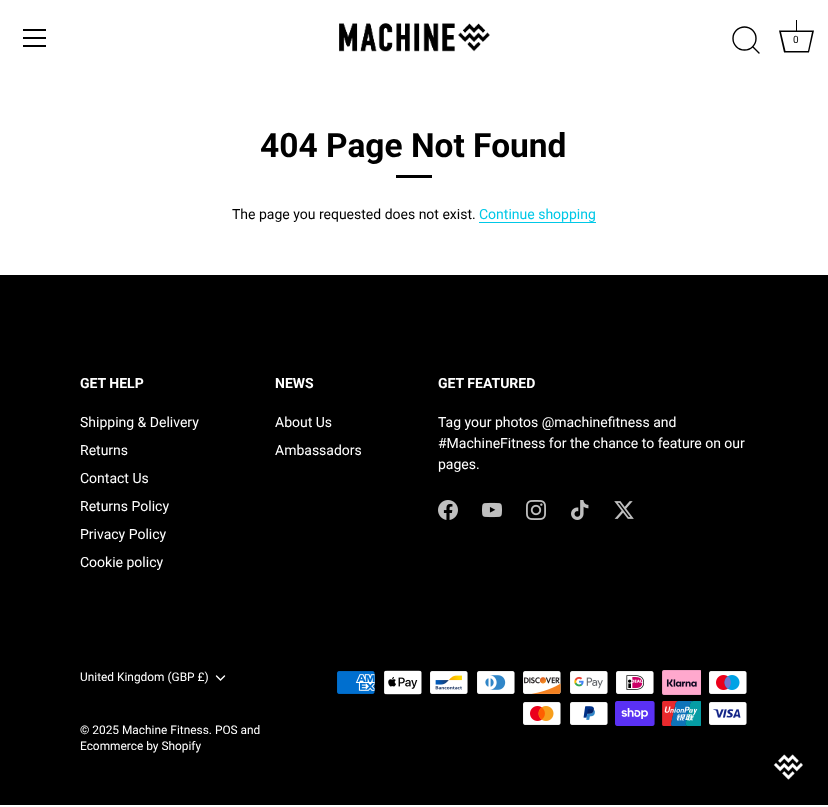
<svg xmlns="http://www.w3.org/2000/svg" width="828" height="807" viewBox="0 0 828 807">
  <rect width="100%" height="100%" fill="#fff"/>
  <path d="M23 29h23v2H23z" fill="#000"/>
  <path d="M23 37h23v2H23z" fill="#000"/>
  <path d="M23 45h23v2H23z" fill="#000"/>
  <image x="339" y="23" width="151" height="29" href="img/1.png"/>
  <circle cx="744.5" cy="38.5" r="11.5" fill="none" stroke="#000" stroke-width="1.4"/>
  <path d="M759 53L753 47" fill="none" stroke="#000" stroke-width="1.4" stroke-linecap="round" stroke-linejoin="round"/>
  <path d="M812 32L808 51H785.5L781 32H812M814 30.5H779L784 52.5H809Z" fill="#000"/>
  <path d="M796 20h1v11H796z" fill="#000"/>
  <path d="M396 175h36v3H396z" fill="#000"/>
  <path d="M479 222h117v1H479z" fill="#00c8e7"/>
  <path d="M0 275h828v530H0z" fill="#000"/>
  <image x="438" y="500" width="20" height="20" href="img/2.png"/>
  <image x="482" y="502" width="20" height="16" href="img/3.png"/>
  <image x="526" y="500" width="20" height="20" href="img/4.png"/>
  <image x="571" y="500" width="18" height="20" href="img/5.png"/>
  <image x="614" y="501" width="20" height="18" href="img/6.png"/>
  <path d="M216.5 676L220.5 680L224.5 676" fill="none" stroke="#fff" stroke-width="1.4" stroke-linecap="round"/>
  <image x="337" y="671" width="38" height="23" href="img/7.png"/>
  <image x="384" y="670" width="38" height="25" href="img/8.png"/>
  <image x="430" y="671" width="38" height="23" href="img/9.png"/>
  <image x="477" y="671" width="38" height="23" href="img/10.png"/>
  <image x="523" y="671" width="38" height="23" href="img/11.png"/>
  <image x="570" y="671" width="38" height="23" href="img/12.png"/>
  <image x="616" y="671" width="38" height="23" href="img/13.png"/>
  <image x="662" y="670" width="39" height="25" href="img/14.png"/>
  <image x="709" y="671" width="38" height="23" href="img/15.png"/>
  <image x="523" y="702" width="38" height="23" href="img/16.png"/>
  <image x="570" y="702" width="38" height="23" href="img/17.png"/>
  <image x="615" y="701" width="40" height="25" href="img/18.png"/>
  <image x="662" y="701" width="39" height="25" href="img/19.png"/>
  <image x="709" y="702" width="38" height="23" href="img/20.png"/>
  <image x="773" y="754" width="30" height="26" href="img/21.png"/>
  <text x="793" y="43" font-family="Roboto" font-size="10" fill="#000">0</text>
  <text x="260" y="157" font-family="Roboto" font-size="33.5" font-weight="bold" fill="#000">404 Page Not Found</text>
  <text x="232" y="219" font-family="Roboto" font-size="14" fill="#000">The page you requested does not exist.</text>
  <text x="479" y="219" font-family="Roboto" font-size="14" fill="#00c8e7">Continue shopping</text>
  <text x="80" y="388" font-family="Roboto" font-size="14" font-weight="bold" fill="#fff">GET HELP</text>
  <g font-family="Roboto" font-size="14" fill="#fff">
    <text x="80" y="427">Shipping &amp; Delivery</text>
    <text x="80" y="455">Returns</text>
    <text x="80" y="483">Contact Us</text>
    <text x="80" y="511">Returns Policy</text>
    <text x="80" y="539">Privacy Policy</text>
    <text x="80" y="567">Cookie policy</text>
  </g>
  <text x="275" y="388" font-family="Roboto" font-size="14" font-weight="bold" fill="#fff">NEWS</text>
  <g font-family="Roboto" font-size="14" fill="#fff">
    <text x="275" y="427">About Us</text>
    <text x="275" y="455">Ambassadors</text>
  </g>
  <text x="438" y="388" font-family="Roboto" font-size="14" font-weight="bold" fill="#fff">GET FEATURED</text>
  <g font-family="Roboto" font-size="14" fill="#fff">
    <text x="438" y="427">Tag your photos @machinefitness and</text>
    <text x="438" y="448">#MachineFitness for the chance to feature on our</text>
    <text x="438" y="469">pages.</text>
  </g>
  <g font-family="Roboto" font-size="11.9" fill="#fff">
    <text x="80" y="681">United Kingdom (GBP £)</text>
    <text x="80" y="734">© 2025 Machine Fitness. POS and</text>
    <text x="80" y="750">Ecommerce by Shopify</text>
  </g>
</svg>
